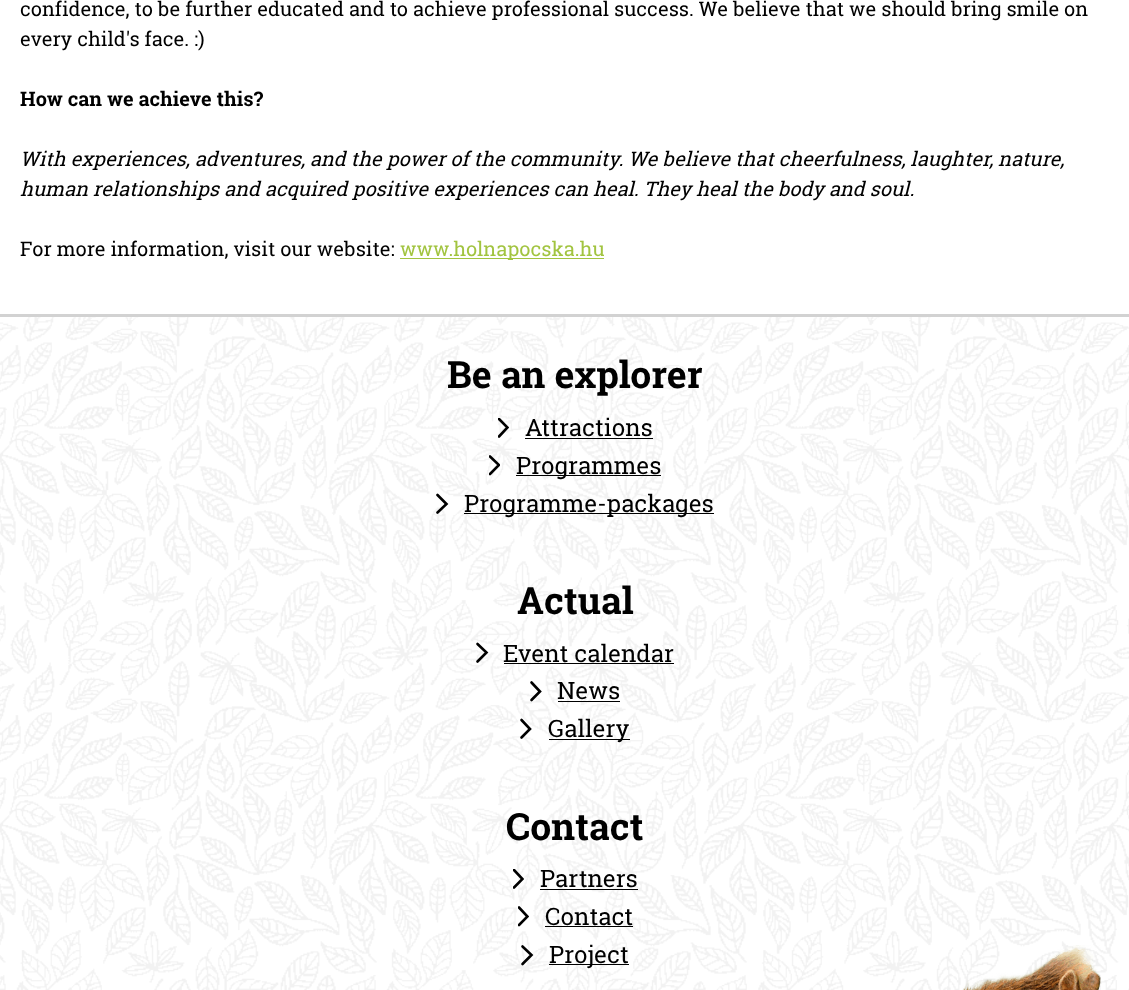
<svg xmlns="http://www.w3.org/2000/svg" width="1129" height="990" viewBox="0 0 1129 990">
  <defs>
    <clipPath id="clip1"><path d="M498 418h11v20H498z"/></clipPath>
    <clipPath id="clip2"><path d="M489 455h11v21H489z"/></clipPath>
    <clipPath id="clip3"><path d="M513 869h11v20H513z"/></clipPath>
    <clipPath id="clip4"><path d="M518 906h11v22H518z"/></clipPath>
  </defs>
  <rect width="100%" height="100%" fill="#fff"/>
  <path d="M400 258h204v1H400z" fill="#a2c440"/>
  <image x="0" y="317" width="1129" height="673" href="img/1.png"/>
  <path d="M0 314h1129v3H0z" fill="#d2d2d2"/>
  <g clip-path="url(#clip1)">
    <path d="M499 419L507.5 427.5L499 436.5" fill="none" stroke="#000" stroke-width="2.6" stroke-linecap="round"/>
  </g>
  <path d="M525 438h128v1H525z" fill="#000"/>
  <g clip-path="url(#clip2)">
    <path d="M490 456.5L499 465L490 474" fill="none" stroke="#000" stroke-width="2.6" stroke-linecap="round"/>
  </g>
  <path d="M516 475h145v1H516z" fill="#000"/>
  <path d="M437.5 495L446.5 504L437.5 512.5" fill="none" stroke="#000" stroke-width="2.6" stroke-linecap="round"/>
  <path d="M464 513h250v1H464z" fill="#000"/>
  <path d="M477.5 644L486.5 652.5L477.5 661.5" fill="none" stroke="#000" stroke-width="2.6" stroke-linecap="round"/>
  <path d="M504 663h170v1H504z" fill="#000"/>
  <path d="M531.5 682.5L540 691.5L531.5 700M521.5 720L530 729L521.5 737.5" fill="none" stroke="#000" stroke-width="2.6" stroke-linecap="round"/>
  <path d="M558 701h62v1H558z" fill="#000"/>
  <path d="M549 739h81v1H549z" fill="#000"/>
  <g clip-path="url(#clip3)">
    <path d="M514 870L522.5 879L514 887.5" fill="none" stroke="#000" stroke-width="2.6" stroke-linecap="round"/>
  </g>
  <path d="M540 889h98v1H540z" fill="#000"/>
  <g clip-path="url(#clip4)">
    <path d="M519 907.5L527.5 916.5L519 925" fill="none" stroke="#000" stroke-width="2.6" stroke-linecap="round"/>
  </g>
  <path d="M545 926h88v1H545z" fill="#000"/>
  <path d="M522.5 946.5L531.5 955L522.5 964" fill="none" stroke="#000" stroke-width="2.6" stroke-linecap="round"/>
  <path d="M549 964h80v1H549z" fill="#000"/>
  <image x="962" y="945" width="139" height="45" href="img/2.png"/>
  <g font-family="Roboto Slab" font-size="20" fill="#000">
    <text x="20" y="16">confidence, to be further educated and to achieve professional success. We believe that we should bring smile on</text>
    <text x="20" y="46">every child's face. :)</text>
  </g>
  <text x="20" y="106" font-family="Roboto Slab" font-size="20" font-weight="bold" fill="#000">How can we achieve this?</text>
  <g font-family="Roboto Slab" font-size="20" font-style="italic" fill="#000">
    <text x="20" y="166">With experiences, adventures, and the power of the community. We believe that cheerfulness, laughter, nature,</text>
    <text x="20" y="196">human relationships and acquired positive experiences can heal. They heal the body and soul.</text>
  </g>
  <text x="20" y="256" font-family="Roboto Slab" font-size="20" fill="#000">For more information, visit our website:</text>
  <text x="400" y="256" font-family="Roboto Slab" font-size="20" fill="#a2c440">www.holnapocska.hu</text>
  <text x="447" y="388" font-family="Roboto Slab" font-size="37.5" font-weight="bold" fill="#000">Be an explorer</text>
  <g font-family="Roboto Slab" font-size="24" fill="#000">
    <text x="525" y="436">Attractions</text>
    <text x="516" y="474">Programmes</text>
    <text x="464" y="512">Programme-packages</text>
  </g>
  <text x="517" y="614" font-family="Roboto Slab" font-size="37.5" font-weight="bold" fill="#000">Actual</text>
  <g font-family="Roboto Slab" font-size="24" fill="#000">
    <text x="503" y="662">Event calendar</text>
    <text x="557" y="699">News</text>
    <text x="548" y="737">Gallery</text>
  </g>
  <text x="506" y="840" font-family="Roboto Slab" font-size="37.5" font-weight="bold" fill="#000">Contact</text>
  <g font-family="Roboto Slab" font-size="24" fill="#000">
    <text x="540" y="887">Partners</text>
    <text x="545" y="925">Contact</text>
    <text x="549" y="963">Project</text>
  </g>
</svg>
